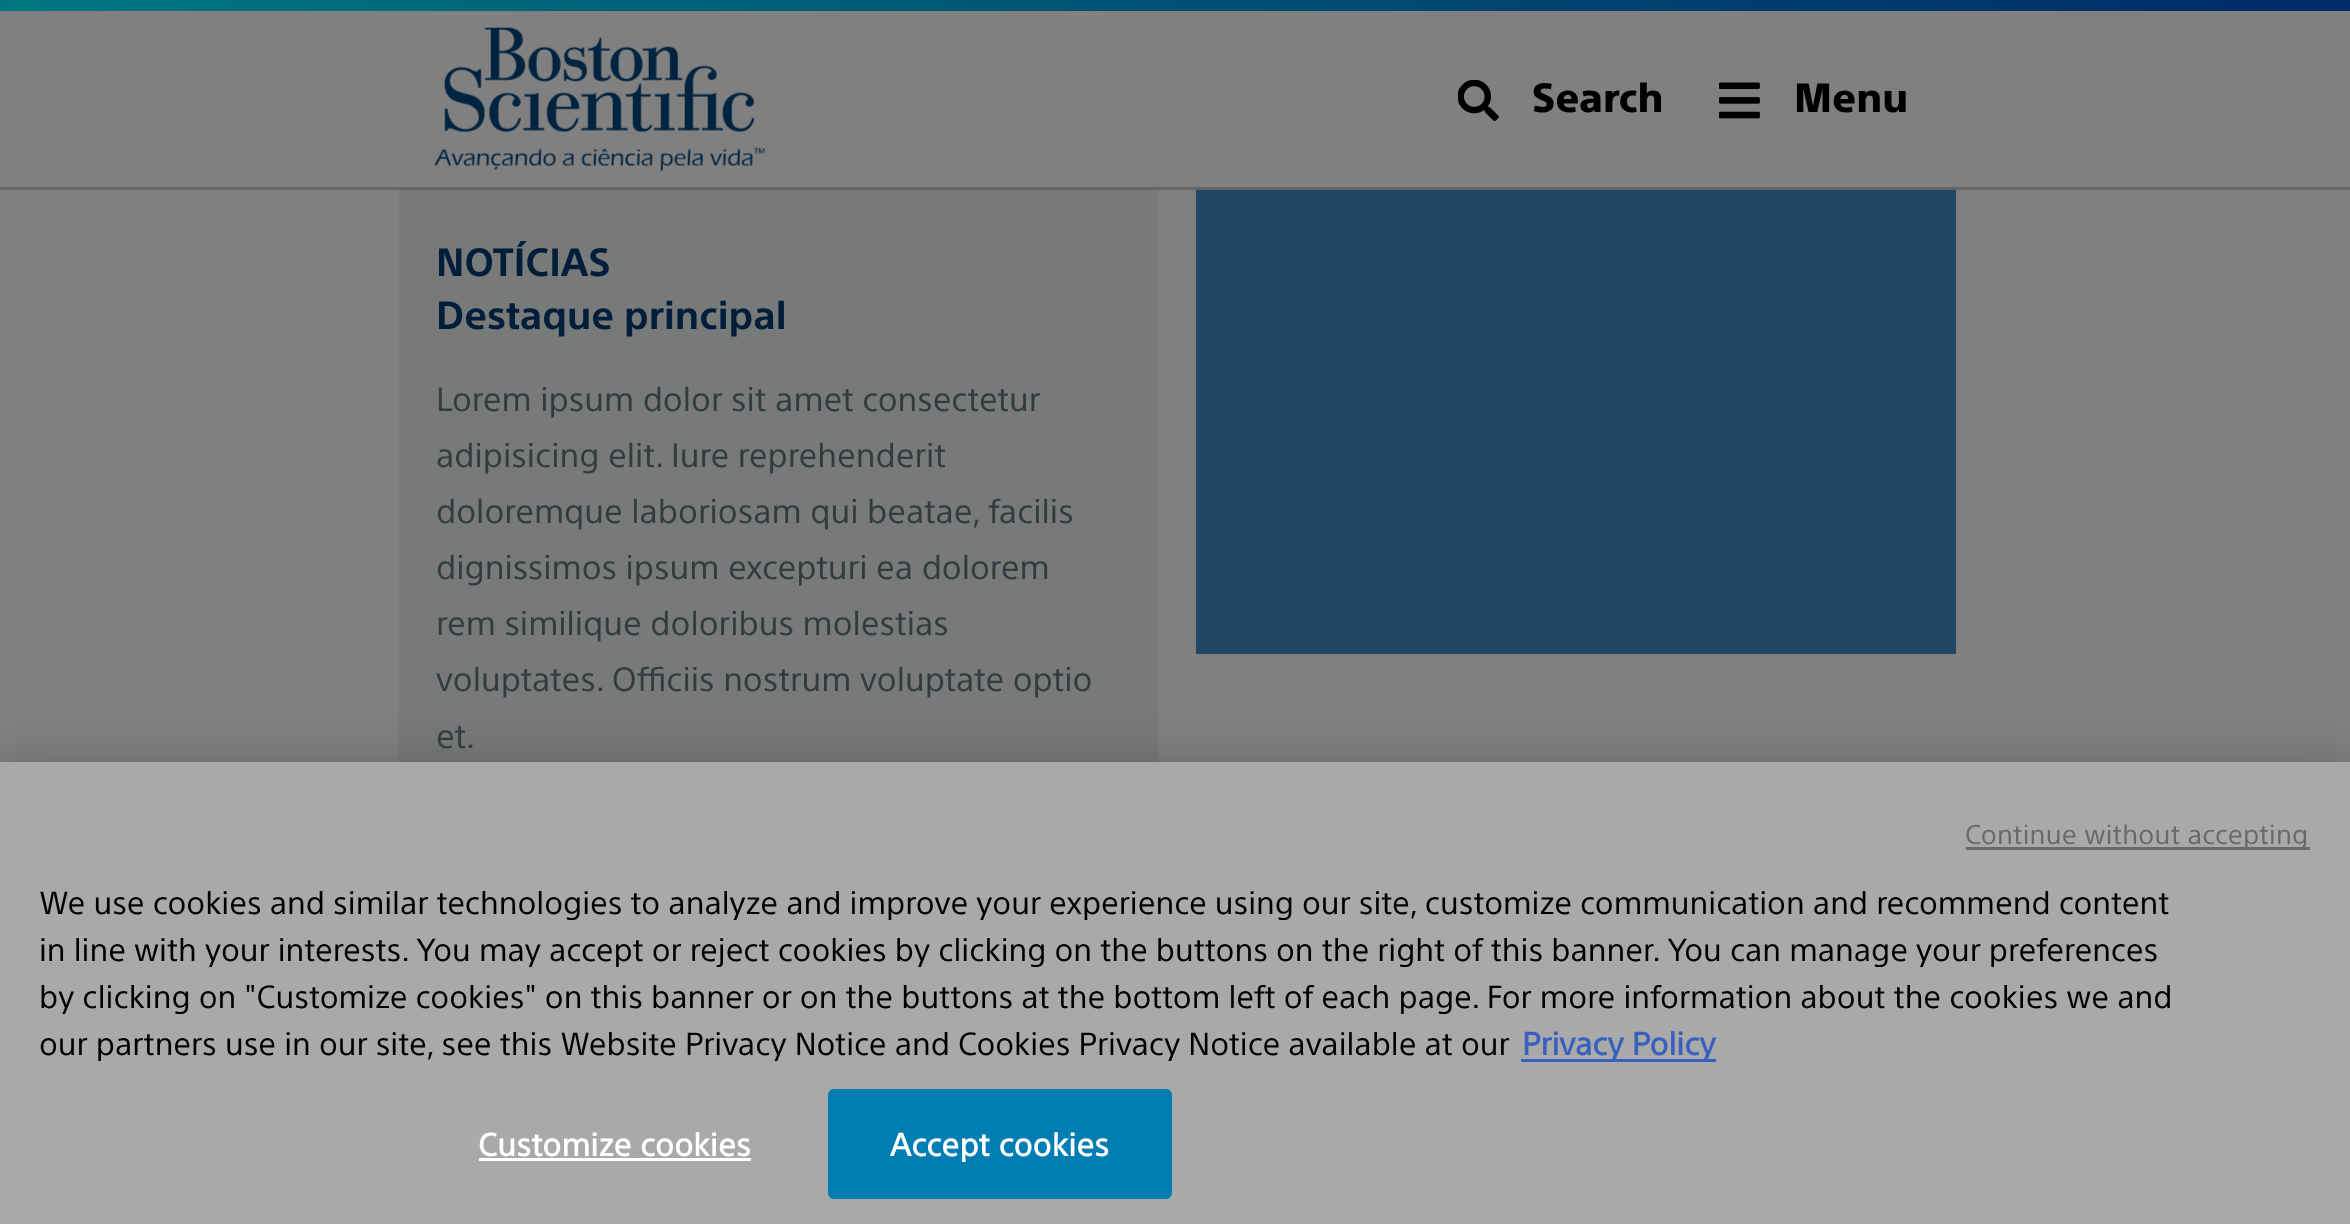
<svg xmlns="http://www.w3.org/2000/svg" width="2350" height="1224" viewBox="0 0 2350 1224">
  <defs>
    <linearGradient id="g1" gradientUnits="userSpaceOnUse" x1="0" y1="5.5" x2="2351" y2="5.5"><stop offset="0" stop-color="#007780"/><stop offset="1" stop-color="#012a66"/></linearGradient>
  </defs>
  <rect width="100%" height="100%" fill="#808080"/>
  <path d="M-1.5 9.5h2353v179H-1.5z" fill="none" stroke="#666" stroke-width="3"/>
  <path d="M0 0h2350v11H0z" fill="url(#g1)"/>
  <image x="434" y="27" width="331" height="144" href="img/1.png"/>
  <image x="1458" y="80" width="41" height="41" href="img/2.png"/>
  <image x="1719" y="82" width="41" height="37" href="img/3.png"/>
  <path d="M399 190h759v572H399z" fill="#787979"/>
  <path d="M1196 190h760v464H1196z" fill="#1f4765"/>
  <path d="M0 762h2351v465H0z" fill="#00000033" filter="blur(25px)"/>
  <path d="M0 762h2350v462H0z" fill="#a9a9a9"/>
  <path d="M1966 847h344v3H1966z" fill="#696969"/>
  <path d="M1521 1059h195v3H1521z" fill="#3860be"/>
  <path d="M479 1158h272v3H479z" fill="#fff"/>
  <rect x="829.5" y="1090.5" width="341" height="107" rx="4.5" fill="#007db3" stroke="#007db3" stroke-width="3"/>
  <g font-family="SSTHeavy" font-size="40" font-weight="900" fill="#000">
    <text x="1532" y="112">Search</text>
    <text x="1794" y="112">Menu</text>
  </g>
  <g font-family="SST" font-size="38.5" font-weight="bold" fill="#001e39">
    <text x="436" y="276">NOTÍCIAS</text>
    <text x="436" y="329">Destaque principal</text>
  </g>
  <g font-family="SST" font-size="33" fill="#353a3e">
    <text x="436" y="411">Lorem ipsum dolor sit amet consectetur</text>
    <text x="436" y="467">adipisicing elit. Iure reprehenderit</text>
    <text x="436" y="523">doloremque laboriosam qui beatae, facilis</text>
    <text x="436" y="579">dignissimos ipsum excepturi ea dolorem</text>
    <text x="436" y="635">rem similique doloribus molestias</text>
    <text x="436" y="691">voluptates. Officiis nostrum voluptate optio</text>
    <text x="436" y="748">et.</text>
  </g>
  <text x="1965" y="844" font-family="SST" font-size="26.5" letter-spacing="0.25" fill="#696969">Continue without accepting</text>
  <g font-family="SST" font-size="31.3" fill="#000">
    <text x="39" y="914">We use cookies and similar technologies to analyze and improve your experience using our site, customize communication and recommend content</text>
    <text x="39" y="961">in line with your interests. You may accept or reject cookies by clicking on the buttons on the right of this banner. You can manage your preferences</text>
    <text x="39" y="1008">by clicking on "Customize cookies" on this banner or on the buttons at the bottom left of each page. For more information about the cookies we and</text>
    <text x="39" y="1055">our partners use in our site, see this Website Privacy Notice and Cookies Privacy Notice available at our</text>
  </g>
  <text x="1522" y="1055" font-family="'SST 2'" font-size="31.3" font-weight="bold" fill="#3860be">Privacy Policy</text>
  <g font-family="'SST 2'" font-size="31.3" font-weight="bold" letter-spacing="0.3" fill="#fff">
    <text x="478" y="1156">Customize cookies</text>
    <text x="890" y="1156">Accept cookies</text>
  </g>
</svg>
